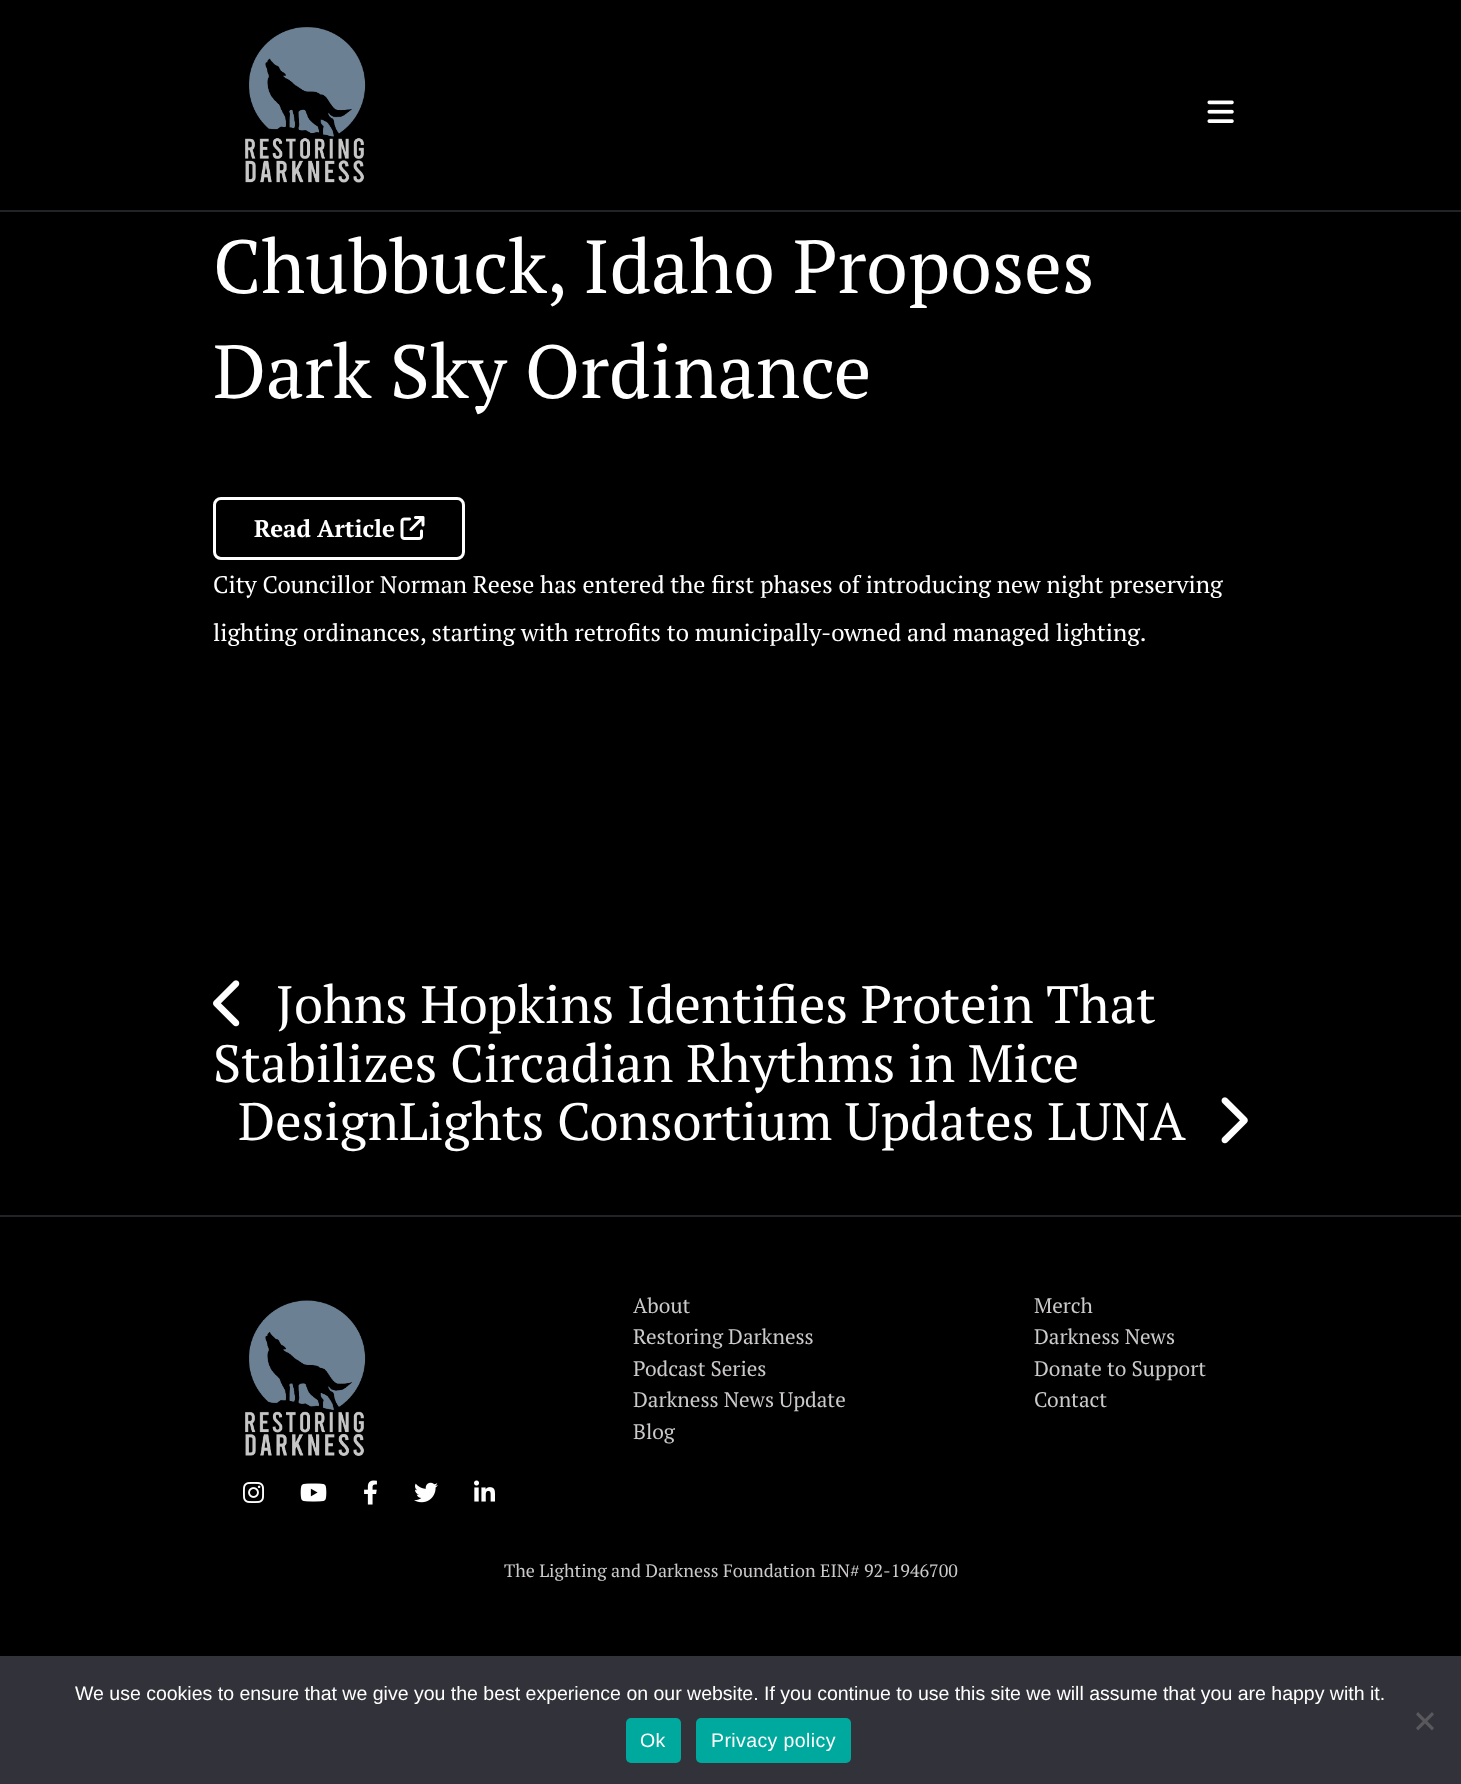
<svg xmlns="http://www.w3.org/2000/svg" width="1461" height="1784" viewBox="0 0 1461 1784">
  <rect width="100%" height="100%" fill="#000"/>
  <path d="M0 210h1461v2H0z" fill="#212326"/>
  <image x="245" y="27" width="121" height="156" href="img/1.png"/>
  <image x="1207" y="100" width="27" height="23" href="img/2.png"/>
  <rect x="214.5" y="498.5" width="249" height="60" rx="6.5" fill="none" stroke="#fff" stroke-width="3"/>
  <image x="400" y="516" width="25" height="24" href="img/3.png"/>
  <image x="213" y="980" width="27" height="47" href="img/4.png"/>
  <image x="1221" y="1097" width="27" height="47" href="img/5.png"/>
  <path d="M0 1215h1461v2H0z" fill="#212326"/>
  <image x="245" y="1300" width="121" height="156" href="img/6.png"/>
  <image x="243" y="1482" width="21" height="21" href="img/7.png"/>
  <image x="300" y="1483" width="27" height="19" href="img/8.png"/>
  <image x="364" y="1480" width="13" height="25" href="img/9.png"/>
  <image x="414" y="1482" width="24" height="21" href="img/10.png"/>
  <image x="474" y="1480" width="21" height="22" href="img/11.png"/>
  <path d="M0 1656h1461v128H0z" fill="#32323a"/>
  <path d="M1432 1712L1434 1714.5L1418 1730.5L1416 1728Z" fill="#59595d"/>
  <path d="M1416 1714.5L1418 1712L1434 1728L1432 1730.5Z" fill="#59595d"/>
  <rect x="626" y="1718" width="55" height="45" rx="5" fill="#00a99d"/>
  <rect x="696" y="1718" width="155" height="45" rx="5" fill="#00a99d"/>
  <g font-family="PT Serif" font-size="75" fill="#fff">
    <text x="213" y="293">Chubbuck, Idaho Proposes</text>
    <text x="213" y="398">Dark Sky Ordinance</text>
  </g>
  <text x="254" y="537" font-family="PT Serif" font-size="24" font-weight="bold" fill="#fff">Read Article</text>
  <g font-family="PT Serif" font-size="24" fill="#fff">
    <text x="213" y="593">City Councillor Norman Reese has entered the first phases of introducing new night preserving</text>
    <text x="213" y="641">lighting ordinances, starting with retrofits to municipally-owned and managed lighting.</text>
  </g>
  <g font-family="PT Serif" font-size="52.5" fill="#fff">
    <text x="276" y="1023">Johns Hopkins Identifies Protein That</text>
    <text x="213" y="1082">Stabilizes Circadian Rhythms in Mice</text>
    <text x="238" y="1140">DesignLights Consortium Updates LUNA</text>
  </g>
  <g font-family="PT Serif" font-size="21" fill="#cbc9c9">
    <text x="633" y="1313">About</text>
    <text x="633" y="1344">Restoring Darkness</text>
    <text x="633" y="1376">Podcast Series</text>
    <text x="633" y="1407">Darkness News Update</text>
    <text x="633" y="1439">Blog</text>
    <text x="1034" y="1313">Merch</text>
    <text x="1034" y="1344">Darkness News</text>
    <text x="1034" y="1376">Donate to Support</text>
    <text x="1034" y="1407">Contact</text>
  </g>
  <text x="504" y="1577" font-family="PT Serif" font-size="18" fill="#cbc9c9">The Lighting and Darkness Foundation EIN# 92-1946700</text>
  <text x="75" y="1700" font-family="Liberation Sans" font-size="19.5" fill="#fff">We use cookies to ensure that we give you the best experience on our website. If you continue to use this site we will assume that you are happy with it.</text>
  <g font-family="Liberation Sans" font-size="19.5" letter-spacing="0.4" fill="#fff">
    <text x="640" y="1747">Ok</text>
    <text x="711" y="1747">Privacy policy</text>
  </g>
</svg>
